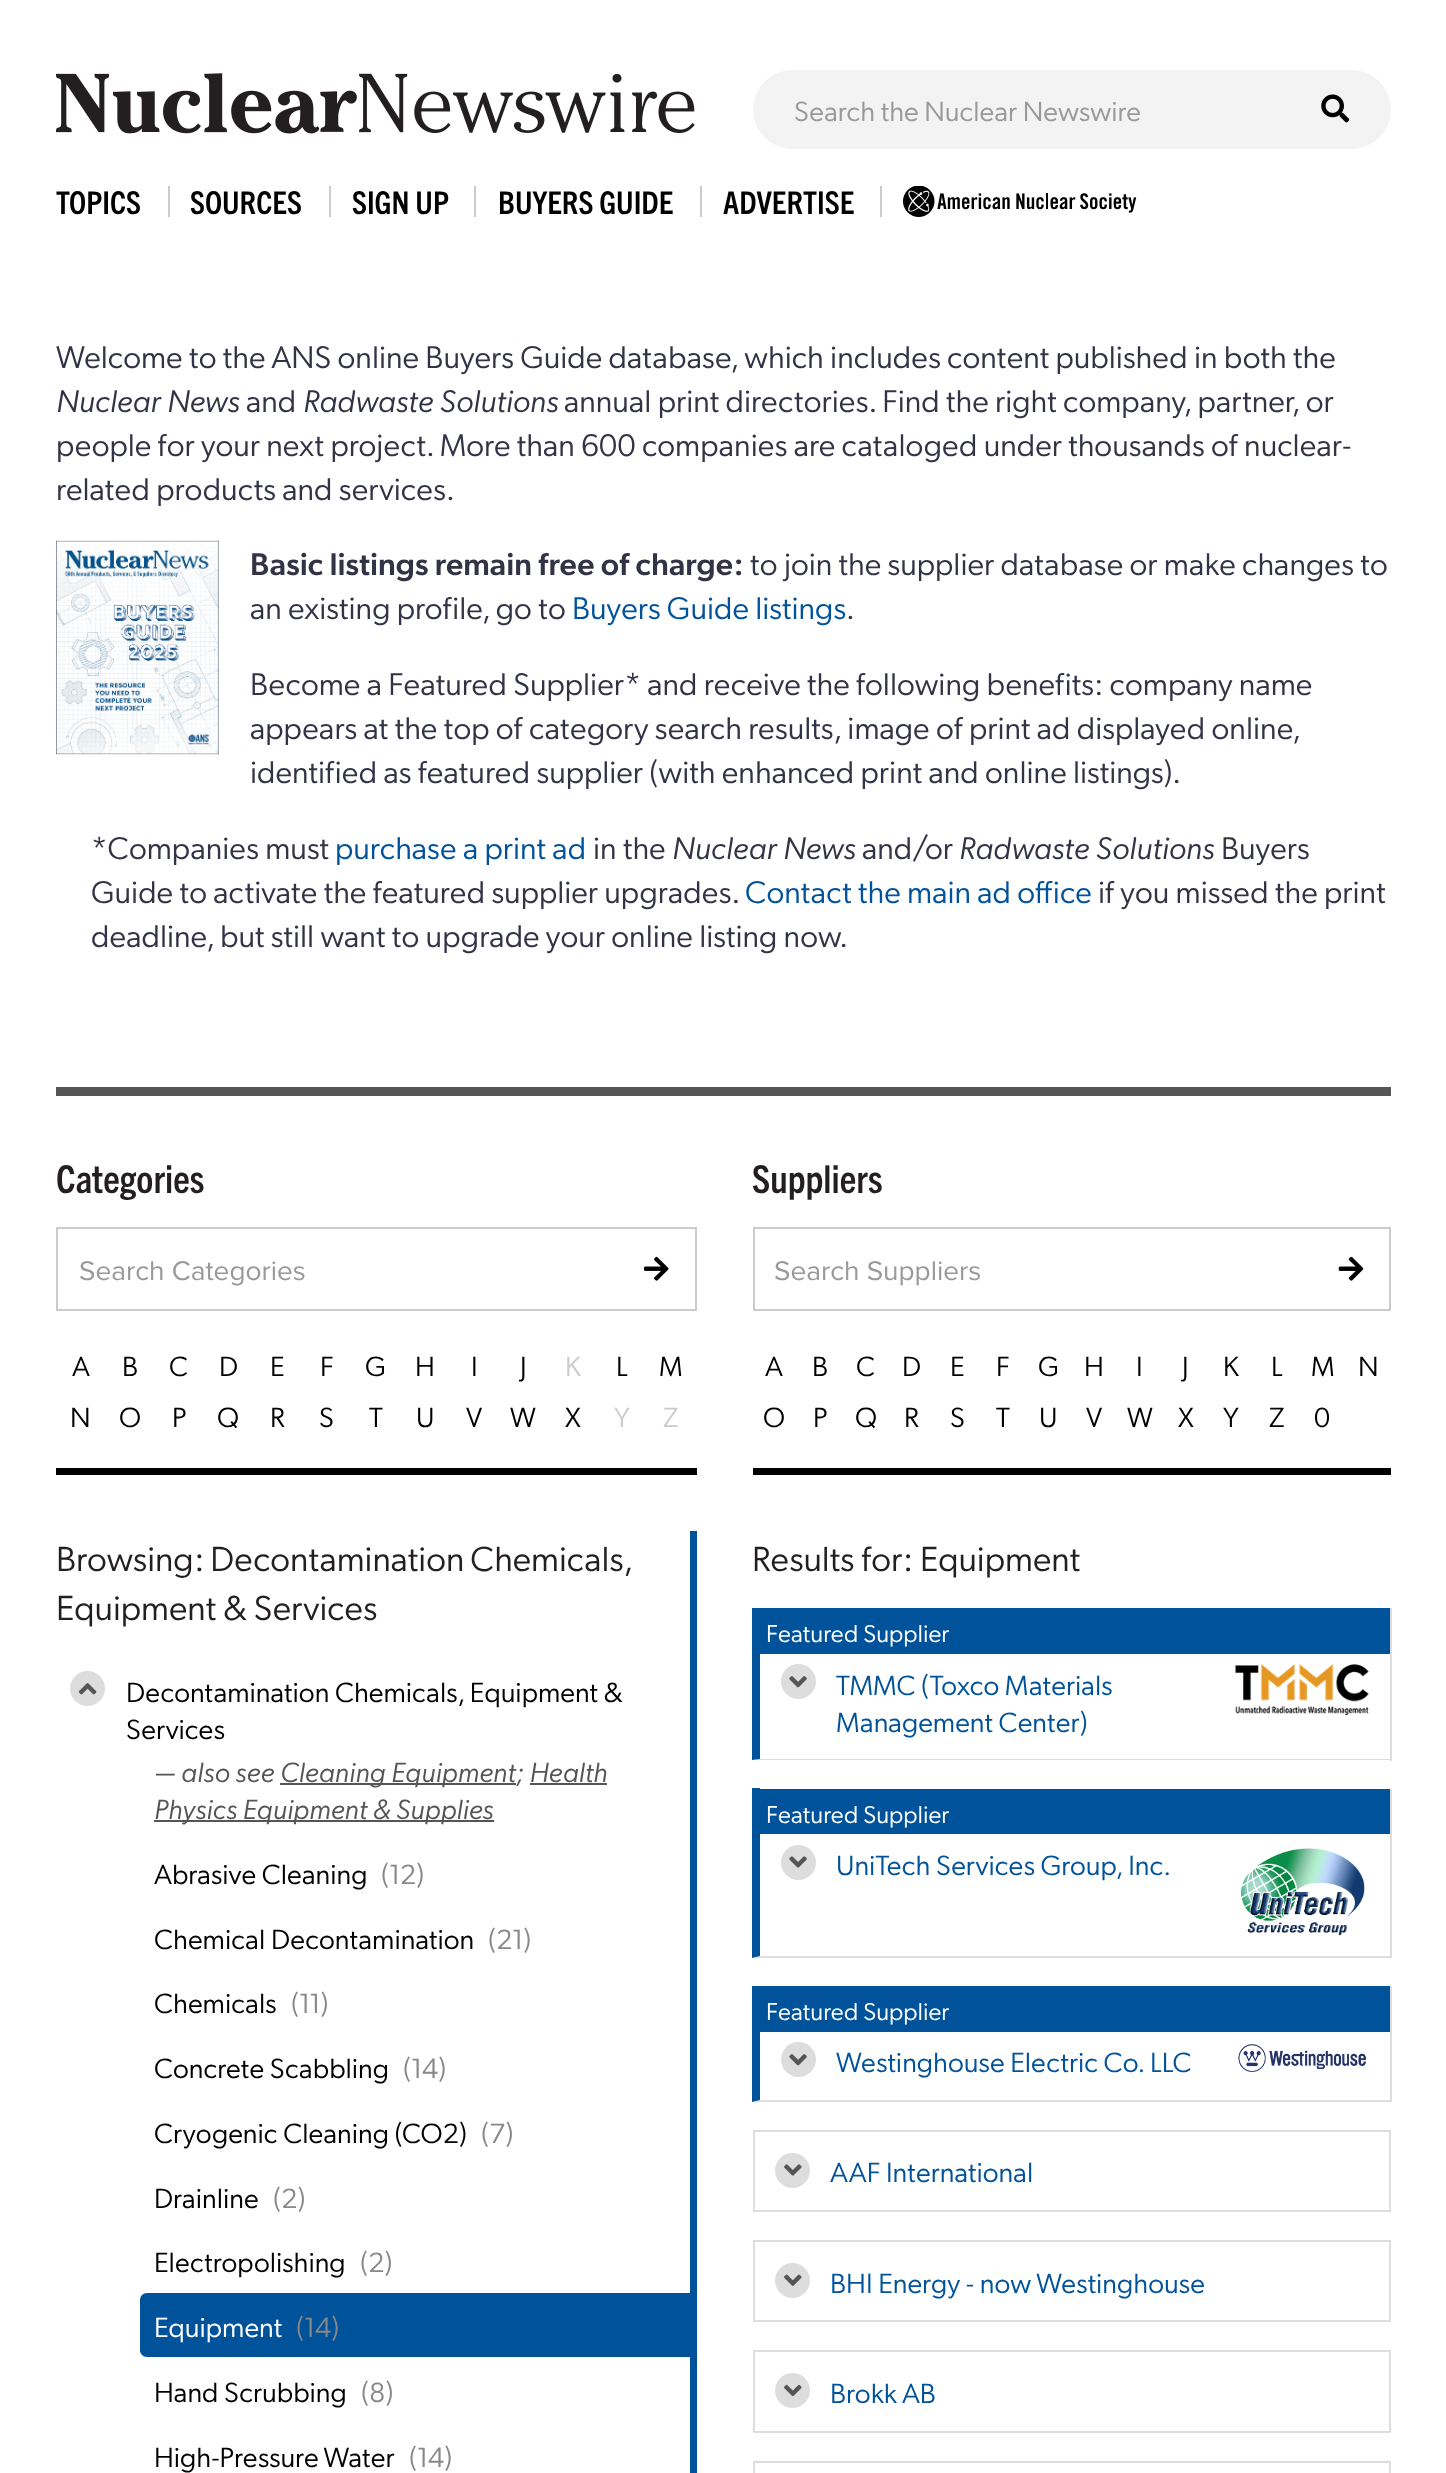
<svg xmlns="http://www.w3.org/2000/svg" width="1446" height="2473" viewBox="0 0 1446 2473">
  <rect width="100%" height="100%" fill="#fff"/>
  <image x="56" y="73" width="639" height="61" href="img/1.png"/>
  <rect x="753" y="70" width="638" height="79" rx="39.5" fill="#f3f3f3"/>
  <image x="1321" y="94" width="29" height="29" href="img/2.png"/>
  <path d="M168 186h2v31H168z" fill="#ccc"/>
  <path d="M329 186h2v31H329z" fill="#ccc"/>
  <path d="M474 186h2v31H474z" fill="#ccc"/>
  <path d="M700 186h2v31H700z" fill="#ccc"/>
  <path d="M880 186h2v31H880z" fill="#ccc"/>
  <image x="903" y="186" width="234" height="31" href="img/3.png"/>
  <image x="56" y="540" width="163" height="215" href="img/4.png"/>
  <path d="M56 1087h1335v9H56z" fill="#555"/>
  <path d="M56 1468h641v7H56z" fill="#000"/>
  <path d="M57 1228h639v82H57z" fill="none" stroke="#ccc" stroke-width="2"/>
  <image x="644" y="1256" width="25" height="25" href="img/5.png"/>
  <circle cx="87.5" cy="1688.5" r="17.5" fill="#ddd"/>
  <image x="78" y="1683" width="19" height="12" href="img/6.png"/>
  <path d="M280 1783h236v2H280z" fill="#555"/>
  <path d="M530 1783h77v2H530z" fill="#555"/>
  <path d="M154 1820h340v2H154z" fill="#555"/>
  <path d="M147 2293H683V2357H147C143 2357 140 2354 140 2350V2300C140 2296 143 2293 147 2293Z" fill="#00539b"/>
  <path d="M683 2293h7v64H683z" fill="#00539b"/>
  <path d="M753 1468h638v7H753z" fill="#000"/>
  <path d="M754 1228h636v82H754z" fill="none" stroke="#ccc" stroke-width="2"/>
  <image x="1338" y="1256" width="26" height="25" href="img/7.png"/>
  <path d="M690 1531h7v942H690z" fill="#00539b"/>
  <path d="M1390 1608h2v153H1390z" fill="#ddd"/>
  <path d="M1391 1760H752L760 1759H1390Z" fill="#ddd"/>
  <path d="M752 1760V1608H760V1759Z" fill="#00539b"/>
  <path d="M760 1608h630v46H760z" fill="#00539b"/>
  <circle cx="798.5" cy="1681.5" r="17.5" fill="#ddd"/>
  <image x="789" y="1676" width="18" height="12" href="img/8.png"/>
  <image x="1235" y="1664" width="134" height="51" href="img/9.png"/>
  <path d="M1390 1789h2v169H1390z" fill="#ddd"/>
  <path d="M1391 1958H752L760 1956H1390Z" fill="#ddd"/>
  <path d="M752 1958V1788H760V1956Z" fill="#00539b"/>
  <path d="M760 1789h630v45H760z" fill="#00539b"/>
  <circle cx="798.5" cy="1862.5" r="17.5" fill="#ddd"/>
  <image x="789" y="1856" width="18" height="12" href="img/10.png"/>
  <image x="1240" y="1848" width="125" height="87" href="img/11.png"/>
  <path d="M1390 1986h2v116H1390z" fill="#ddd"/>
  <path d="M1391 2102H752L760 2100H1390Z" fill="#ddd"/>
  <path d="M752 2102V1986H760V2100Z" fill="#00539b"/>
  <path d="M760 1986h630v46H760z" fill="#00539b"/>
  <circle cx="798.5" cy="2059.5" r="17.5" fill="#ddd"/>
  <image x="789" y="2054" width="18" height="12" href="img/8.png"/>
  <image x="1238" y="2044" width="128" height="28" href="img/12.png"/>
  <path d="M754 2131h636v80H754z" fill="none" stroke="#ddd" stroke-width="2"/>
  <circle cx="792.5" cy="2170.5" r="17.5" fill="#ddd"/>
  <image x="784" y="2164" width="18" height="12" href="img/13.png"/>
  <path d="M754 2241h636v80H754z" fill="none" stroke="#ddd" stroke-width="2"/>
  <circle cx="792.5" cy="2280.5" r="17.5" fill="#ddd"/>
  <image x="784" y="2274" width="18" height="12" href="img/14.png"/>
  <path d="M754 2351h636v81H754z" fill="none" stroke="#ddd" stroke-width="2"/>
  <circle cx="792.5" cy="2390.5" r="17.5" fill="#ddd"/>
  <image x="784" y="2384" width="18" height="13" href="img/15.png"/>
  <path d="M754 2462h636v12H754z" fill="none" stroke="#ddd" stroke-width="2"/>
  <text x="794" y="121" font-family="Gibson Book" font-size="28" fill="#999">Search the Nuclear Newswire</text>
  <g font-family="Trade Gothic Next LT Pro" font-size="31.5" font-weight="bold" fill="#000">
    <text x="56" y="214">TOPICS</text>
    <text x="190" y="214">SOURCES</text>
    <text x="352" y="214">SIGN UP</text>
    <text x="498" y="214">BUYERS GUIDE</text>
    <text x="723" y="214">ADVERTISE</text>
  </g>
  <text x="56" y="368" font-family="Gibson Book" font-size="31.5" fill="#333346">Welcome to the ANS online Buyers Guide database, which includes content published in both the</text>
  <text x="56" y="412" font-family="Gibson Book" font-size="31.5" font-style="italic" fill="#333346">Nuclear News</text>
  <text x="246" y="412" font-family="Gibson Book" font-size="31.5" fill="#333346">and</text>
  <text x="303" y="412" font-family="Gibson Book" font-size="31.5" font-style="italic" fill="#333346">Radwaste Solutions</text>
  <g font-family="Gibson Book" font-size="31.5" fill="#333346">
    <text x="564" y="412">annual print directories. Find the right company, partner, or</text>
    <text x="56" y="456">people for your next project. More than 600 companies are cataloged under thousands of nuclear-</text>
    <text x="56" y="500">related products and services.</text>
  </g>
  <text x="250" y="575" font-family="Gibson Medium" font-size="31.5" font-weight="500" fill="#333346">Basic listings remain free of charge:</text>
  <g font-family="Gibson Book" font-size="31.5" fill="#333346">
    <text x="750" y="575">to join the supplier database or make changes to</text>
    <text x="250" y="619">an existing profile, go to</text>
  </g>
  <text x="572" y="619" font-family="Gibson Book" font-size="31.5" fill="#00539b">Buyers Guide listings</text>
  <g font-family="Gibson Book" font-size="31.5" fill="#333346">
    <text x="846" y="619">.</text>
    <text x="250" y="695">Become a Featured Supplier* and receive the following benefits: company name</text>
    <text x="250" y="739">appears at the top of category search results, image of print ad displayed online,</text>
    <text x="250" y="783">identified as featured supplier (with enhanced print and online listings).</text>
    <text x="91" y="859">*Companies must</text>
  </g>
  <text x="335" y="859" font-family="Gibson Book" font-size="31.5" fill="#00539b">purchase a print ad</text>
  <text x="593" y="859" font-family="Gibson Book" font-size="31.5" fill="#333346">in the</text>
  <text x="672" y="859" font-family="Gibson Book" font-size="31.5" font-style="italic" fill="#333346">Nuclear News</text>
  <text x="862" y="859" font-family="Gibson Book" font-size="31.5" fill="#333346">and/or</text>
  <text x="959" y="859" font-family="Gibson Book" font-size="31.5" font-style="italic" fill="#333346">Radwaste Solutions</text>
  <g font-family="Gibson Book" font-size="31.5" fill="#333346">
    <text x="1221" y="859">Buyers</text>
    <text x="91" y="903">Guide to activate the featured supplier upgrades.</text>
  </g>
  <text x="745" y="903" font-family="Gibson Book" font-size="31.5" fill="#00539b">Contact the main ad office</text>
  <g font-family="Gibson Book" font-size="31.5" fill="#333346">
    <text x="1098" y="903">if you missed the print</text>
    <text x="91" y="947">deadline, but still want to upgrade your online listing now.</text>
  </g>
  <text x="56" y="1193" font-family="Trade Gothic Next LT Pro" font-size="38.5" font-weight="bold" fill="#231f20">Categories</text>
  <text x="79" y="1280" font-family="Proxima Nova" font-size="28" fill="#999">Search Categories</text>
  <g font-family="Gibson Book" font-size="28" fill="#000">
    <text x="72" y="1376">A</text>
    <text x="122" y="1376">B</text>
    <text x="169" y="1376">C</text>
    <text x="219" y="1376">D</text>
    <text x="270" y="1376">E</text>
    <text x="320" y="1376">F</text>
    <text x="365" y="1376">G</text>
    <text x="415" y="1376">H</text>
    <text x="471" y="1376">I</text>
    <text x="520" y="1376">J</text>
  </g>
  <text x="565" y="1376" font-family="Gibson Book" font-size="28" fill="#ccc">K</text>
  <g font-family="Gibson Book" font-size="28" fill="#000">
    <text x="616" y="1376">L</text>
    <text x="659" y="1376">M</text>
    <text x="70" y="1427">N</text>
    <text x="119" y="1427">O</text>
    <text x="172" y="1427">P</text>
    <text x="217" y="1427">Q</text>
    <text x="270" y="1427">R</text>
    <text x="319" y="1427">S</text>
    <text x="369" y="1427">T</text>
    <text x="416" y="1427">U</text>
    <text x="466" y="1427">V</text>
    <text x="510" y="1427">W</text>
    <text x="565" y="1427">X</text>
  </g>
  <g font-family="Gibson Book" font-size="28" fill="#ccc">
    <text x="614" y="1427">Y</text>
    <text x="663" y="1427">Z</text>
  </g>
  <g font-family="Gibson Book" font-size="35" fill="#231f20">
    <text x="56" y="1571" word-spacing="-1">Browsing: Decontamination Chemicals,</text>
    <text x="56" y="1620">Equipment &amp; Services</text>
  </g>
  <g font-family="Gibson Book" font-size="28" fill="#000">
    <text x="126" y="1702">Decontamination Chemicals, Equipment &amp;</text>
    <text x="126" y="1739">Services</text>
  </g>
  <g font-family="Gibson Book" font-size="28" font-style="italic" fill="#555">
    <text x="154" y="1782">— also see</text>
    <text x="280" y="1782">Cleaning Equipment; Health</text>
    <text x="154" y="1819">Physics Equipment &amp; Supplies</text>
  </g>
  <text x="154" y="1884" font-family="Gibson Book" font-size="28" fill="#000">Abrasive Cleaning</text>
  <text x="381" y="1884" font-family="Gibson Book" font-size="28" fill="#888">(12)</text>
  <text x="154" y="1949" font-family="Gibson Book" font-size="28" fill="#000">Chemical Decontamination</text>
  <text x="488" y="1949" font-family="Gibson Book" font-size="28" fill="#888">(21)</text>
  <text x="154" y="2013" font-family="Gibson Book" font-size="28" fill="#000">Chemicals</text>
  <text x="291" y="2013" font-family="Gibson Book" font-size="28" fill="#888">(11)</text>
  <text x="154" y="2078" font-family="Gibson Book" font-size="28" fill="#000">Concrete Scabbling</text>
  <text x="403" y="2078" font-family="Gibson Book" font-size="28" fill="#888">(14)</text>
  <text x="154" y="2143" font-family="Gibson Book" font-size="28" fill="#000">Cryogenic Cleaning (CO2)</text>
  <text x="481" y="2143" font-family="Gibson Book" font-size="28" fill="#888">(7)</text>
  <text x="154" y="2208" font-family="Gibson Book" font-size="28" fill="#000">Drainline</text>
  <text x="273" y="2208" font-family="Gibson Book" font-size="28" fill="#888">(2)</text>
  <text x="154" y="2272" font-family="Gibson Book" font-size="28" fill="#000">Electropolishing</text>
  <text x="360" y="2272" font-family="Gibson Book" font-size="28" fill="#888">(2)</text>
  <text x="154" y="2337" font-family="Gibson Book" font-size="28" fill="#fff">Equipment</text>
  <text x="296" y="2337" font-family="Gibson Book" font-size="28" fill="#888">(14)</text>
  <text x="154" y="2402" font-family="Gibson Book" font-size="28" fill="#000">Hand Scrubbing</text>
  <text x="361" y="2402" font-family="Gibson Book" font-size="28" fill="#888">(8)</text>
  <text x="154" y="2467" font-family="Gibson Book" font-size="28" fill="#000">High-Pressure Water</text>
  <text x="409" y="2467" font-family="Gibson Book" font-size="28" fill="#888">(14)</text>
  <text x="752" y="1193" font-family="Trade Gothic Next LT Pro" font-size="38.5" font-weight="bold" fill="#231f20">Suppliers</text>
  <text x="774" y="1280" font-family="Proxima Nova" font-size="28" fill="#999">Search Suppliers</text>
  <g font-family="Gibson Book" font-size="28" fill="#000">
    <text x="765" y="1376">A</text>
    <text x="812" y="1376">B</text>
    <text x="856" y="1376">C</text>
    <text x="902" y="1376">D</text>
    <text x="950" y="1376">E</text>
    <text x="996" y="1376">F</text>
    <text x="1038" y="1376">G</text>
    <text x="1084" y="1376">H</text>
    <text x="1136" y="1376">I</text>
    <text x="1182" y="1376">J</text>
    <text x="1223" y="1376">K</text>
    <text x="1271" y="1376">L</text>
    <text x="1311" y="1376">M</text>
    <text x="1358" y="1376">N</text>
    <text x="763" y="1427">O</text>
    <text x="813" y="1427">P</text>
    <text x="855" y="1427">Q</text>
    <text x="904" y="1427">R</text>
    <text x="950" y="1427">S</text>
    <text x="996" y="1427">T</text>
    <text x="1039" y="1427">U</text>
    <text x="1086" y="1427">V</text>
    <text x="1127" y="1427">W</text>
    <text x="1178" y="1427">X</text>
    <text x="1223" y="1427">Y</text>
    <text x="1269" y="1427">Z</text>
    <text x="1314" y="1427">0</text>
  </g>
  <text x="752" y="1571" font-family="Gibson Book" font-size="35" fill="#231f20">Results for: Equipment</text>
  <text x="766" y="1642" font-family="Gibson Book" font-size="24.5" fill="#fff">Featured Supplier</text>
  <g font-family="Gibson Book" font-size="28" fill="#00539b">
    <text x="836" y="1695">TMMC (Toxco Materials</text>
    <text x="836" y="1732">Management Center)</text>
  </g>
  <text x="766" y="1823" font-family="Gibson Book" font-size="24.5" fill="#fff">Featured Supplier</text>
  <text x="836" y="1875" font-family="Gibson Book" font-size="28" fill="#00539b">UniTech Services Group, Inc.</text>
  <text x="766" y="2020" font-family="Gibson Book" font-size="24.5" fill="#fff">Featured Supplier</text>
  <g font-family="Gibson Book" font-size="28" fill="#00539b">
    <text x="836" y="2072">Westinghouse Electric Co. LLC</text>
    <text x="830" y="2182">AAF International</text>
    <text x="830" y="2293">BHI Energy - now Westinghouse</text>
    <text x="830" y="2403">Brokk AB</text>
  </g>
</svg>
